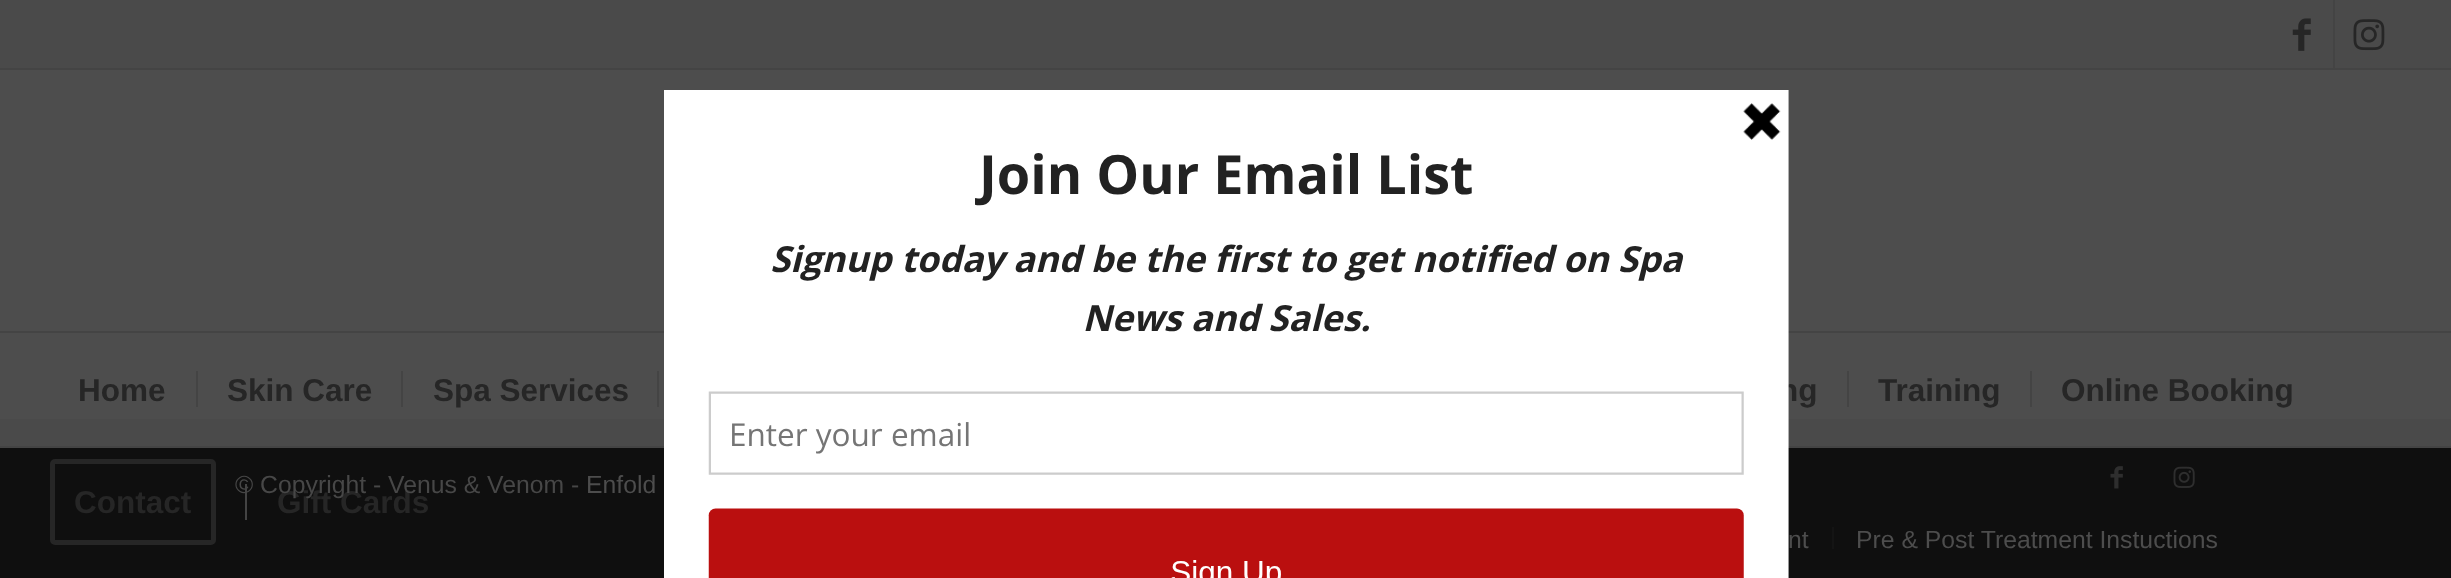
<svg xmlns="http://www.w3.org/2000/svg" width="2451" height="578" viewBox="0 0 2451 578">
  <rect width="100%" height="100%" fill="#4d4d4d"/>
  <path d="M0 0h2451v68H0z" fill="#4a4a4a"/>
  <path d="M0 68h2451v2H0z" fill="#444"/>
  <path d="M2333 0h2v68H2333z" fill="#444"/>
  <image x="2292" y="18" width="19" height="33" href="img/2.png"/>
  <image x="2353" y="19" width="32" height="32" href="img/3.png"/>
  <path d="M0 446h2451v2H0z" fill="#444"/>
  <path d="M0 331h2451v2H0z" fill="#444"/>
  <path d="M196 371h2v36H196z" fill="#444"/>
  <path d="M401 371h2v36H401z" fill="#444"/>
  <path d="M657 371h2v36H657z" fill="#444"/>
  <path d="M1847 371h2v36H1847z" fill="#444"/>
  <path d="M2030 371h2v36H2030z" fill="#444"/>
  <path d="M0 448h2451v130H0z" fill="#0f0f0f"/>
  <rect x="52.5" y="461.5" width="161" height="81" rx="2.5" fill="none" stroke="#262626" stroke-width="5"/>
  <path d="M0 419h2451v27H0z" fill="#4a4a4a"/>
  <image x="2110" y="466" width="13" height="23" href="img/4.png"/>
  <image x="2173" y="466" width="22" height="22" href="img/5.png"/>
  <path d="M1832 527h2v22H1832z" fill="#141414"/>
  <g font-family="Liberation Sans" font-size="31.5" font-weight="bold" fill="#262626">
    <text x="78" y="401">Home</text>
    <text x="227" y="401">Skin Care</text>
    <text x="433" y="401">Spa Services</text>
    <text x="1779" y="401">ng</text>
  </g>
  <image x="664" y="90" width="1125" height="488" href="img/1.png"/>
  <g font-family="Liberation Sans" font-size="31.5" font-weight="bold" fill="#262626">
    <text x="1878" y="401">Training</text>
    <text x="2061" y="401">Online Booking</text>
    <text x="74" y="513">Contact</text>
    <text x="277" y="513">Gift Cards</text>
  </g>
  <text x="235" y="493" font-family="Liberation Sans" font-size="24.75" fill="#474747">© Copyright - Venus &amp; Venom -</text>
  <path d="M245 484h2v36H245z" fill="#444"/>
  <g font-family="Liberation Sans" font-size="24.75" fill="#4d4d4d">
    <text x="586" y="493">Enfold</text>
    <text x="1788" y="548">nt</text>
    <text x="1856" y="548">Pre &amp; Post Treatment Instuctions</text>
  </g>
</svg>
